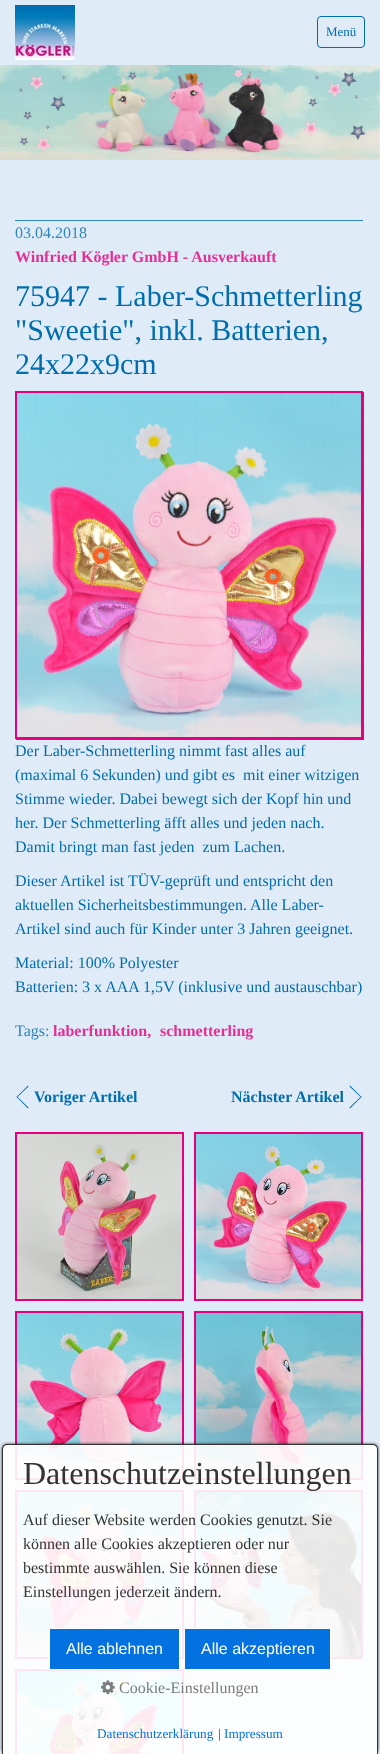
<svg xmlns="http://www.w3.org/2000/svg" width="380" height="1754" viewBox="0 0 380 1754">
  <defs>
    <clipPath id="clip1"><path d="M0 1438H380V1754H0ZM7 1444H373C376 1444 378 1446 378 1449V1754H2V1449C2 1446 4 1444 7 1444Z" clip-rule="evenodd"/></clipPath>
  </defs>
  <rect width="100%" height="100%" fill="#dfebf6"/>
  <image x="15" y="5" width="60" height="55" href="img/1.png"/>
  <rect x="317.5" y="16.5" width="47" height="31" rx="3.5" fill="none" stroke="#006daf"/>
  <image x="0" y="65" width="380" height="95" href="img/2.png"/>
  <path d="M15 220h348v1H15z" fill="#2d86bd"/>
  <path d="M16 392h348v348H16z" fill="#006daf" filter="blur(0.5px)"/>
  <path d="M16 392h346v346H16z" fill="none" stroke="#e6007e" stroke-width="2"/>
  <image x="17" y="393" width="344" height="344" href="img/3.png"/>
  <path d="M28 1108.5L16.5 1097L17 1096.5L28.5 1107.5Z" fill="#006daf"/>
  <path d="M17 1097.5L16.5 1097L28 1085.5L28.5 1086.5Z" fill="#006daf"/>
  <path d="M350 1085.5L361.5 1097L361 1097.5L349.5 1086.5Z" fill="#006daf"/>
  <path d="M361 1096.5L361.5 1097L350 1108.5L349.5 1107.5Z" fill="#006daf"/>
  <path d="M16 1133h167v167H16z" fill="none" stroke="#e6007e" stroke-width="2"/>
  <image x="17" y="1134" width="165" height="165" href="img/4.png"/>
  <path d="M195 1133h167v167H195z" fill="none" stroke="#e6007e" stroke-width="2"/>
  <image x="196" y="1134" width="165" height="165" href="img/5.png"/>
  <path d="M16 1312h167v167H16z" fill="none" stroke="#e6007e" stroke-width="2"/>
  <image x="17" y="1313" width="165" height="165" href="img/6.png"/>
  <path d="M195 1312h167v167H195z" fill="none" stroke="#e6007e" stroke-width="2"/>
  <image x="196" y="1313" width="165" height="165" href="img/7.png"/>
  <path d="M16 1491h167v167H16z" fill="none" stroke="#e6007e" stroke-width="2"/>
  <image x="17" y="1492" width="165" height="165" href="img/8.png"/>
  <path d="M195 1491h167v167H195z" fill="none" stroke="#e6007e" stroke-width="2"/>
  <image x="196" y="1492" width="165" height="165" href="img/9.png"/>
  <path d="M16 1670h167v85H16z" fill="none" stroke="#e6007e" stroke-width="2"/>
  <image x="17" y="1671" width="165" height="83" href="img/10.png"/>
  <g clip-path="url(#clip1)">
    <rect x="2" y="1444" width="376" height="310" rx="5" fill="#000000cc" filter="blur(1.5px)"/>
  </g>
  <path d="M7 1444H373C376 1444 378 1446 378 1449V1754H2V1449C2 1446 4 1444 7 1444Z" fill="#ffffffe6"/>
  <path d="M7 1444H373C376 1444 378 1446 378 1449V1754H2V1449C2 1446 4 1444 7 1444ZM7 1445H373C375 1445 377 1447 377 1449V1754H3V1449C3 1447 5 1445 7 1445Z" fill="#333" fill-rule="evenodd"/>
  <path d="M49.5 1628.5h130v41H49.5z" fill="#0371df" stroke="#fff"/>
  <path d="M184.5 1628.5h146v41H184.5z" fill="#0371df" stroke="#fff"/>
  <image x="101" y="1680" width="14" height="15" href="img/11.png"/>
  <text x="326" y="36" font-family="Liberation Serif" font-size="13" fill="#006daf">Menü</text>
  <text x="15" y="238" font-family="Liberation Serif" font-size="16" fill="#2d86bd">03.04.2018</text>
  <text x="15" y="262" font-family="Liberation Serif" font-size="16" font-weight="bold" fill="#e52f96">Winfried Kögler GmbH - Ausverkauft</text>
  <g font-family="Liberation Serif" font-size="30" fill="#006daf">
    <text x="15" y="306">75947 - Laber-Schmetterling</text>
    <text x="15" y="340">"Sweetie", inkl. Batterien,</text>
    <text x="15" y="374">24x22x9cm</text>
  </g>
  <g font-family="Liberation Serif" font-size="16" fill="#006daf">
    <text x="15" y="756">Der Laber-Schmetterling nimmt fast alles auf</text>
    <text x="15" y="780" xml:space="preserve">(maximal 6 Sekunden) und gibt es  mit einer witzigen</text>
    <text x="15" y="804">Stimme wieder. Dabei bewegt sich der Kopf hin und</text>
    <text x="15" y="828">her. Der Schmetterling äfft alles und jeden nach.</text>
    <text x="15" y="852" xml:space="preserve">Damit bringt man fast jeden  zum Lachen.</text>
    <text x="15" y="886">Dieser Artikel ist TÜV-geprüft und entspricht den</text>
    <text x="15" y="910">aktuellen Sicherheitsbestimmungen. Alle Laber-</text>
    <text x="15" y="934">Artikel sind auch für Kinder unter 3 Jahren geeignet.</text>
    <text x="15" y="968">Material: 100% Polyester</text>
    <text x="15" y="992">Batterien: 3 x AAA 1,5V (inklusive und austauschbar)</text>
  </g>
  <text x="15" y="1036" font-family="Liberation Serif" font-size="16" fill="#2d86bd">Tags:</text>
  <g font-family="Liberation Serif" font-size="16" font-weight="bold" fill="#e52f96">
    <text x="53" y="1036">laberfunktion,</text>
    <text x="160" y="1036">schmetterling</text>
  </g>
  <g font-family="Liberation Serif" font-size="16" font-weight="bold" fill="#006daf">
    <text x="34" y="1102">Voriger Artikel</text>
    <text x="231" y="1102">Nächster Artikel</text>
  </g>
  <text x="23" y="1484" font-family="Liberation Serif" font-size="32" fill="#333">Datenschutzeinstellungen</text>
  <g font-family="Liberation Serif" font-size="16" fill="#333">
    <text x="23" y="1525">Auf dieser Website werden Cookies genutzt. Sie</text>
    <text x="23" y="1549">können alle Cookies akzeptieren oder nur</text>
    <text x="23" y="1573">bestimmte auswählen. Sie können diese</text>
    <text x="23" y="1597">Einstellungen jederzeit ändern.</text>
  </g>
  <g font-family="Liberation Sans" font-size="16" fill="#fff">
    <text x="66" y="1654">Alle ablehnen</text>
    <text x="201" y="1654">Alle akzeptieren</text>
  </g>
  <text x="119" y="1693" font-family="Liberation Serif" font-size="16" fill="#7c7c7c">Cookie-Einstellungen</text>
  <text x="97" y="1738" font-family="Liberation Serif" font-size="13.25" fill="#0371df">Datenschutzerklärung</text>
  <text x="218" y="1738" font-family="Liberation Serif" font-size="13.25" fill="#333">|</text>
  <text x="224" y="1738" font-family="Liberation Serif" font-size="13.25" fill="#0371df">Impressum</text>
</svg>
